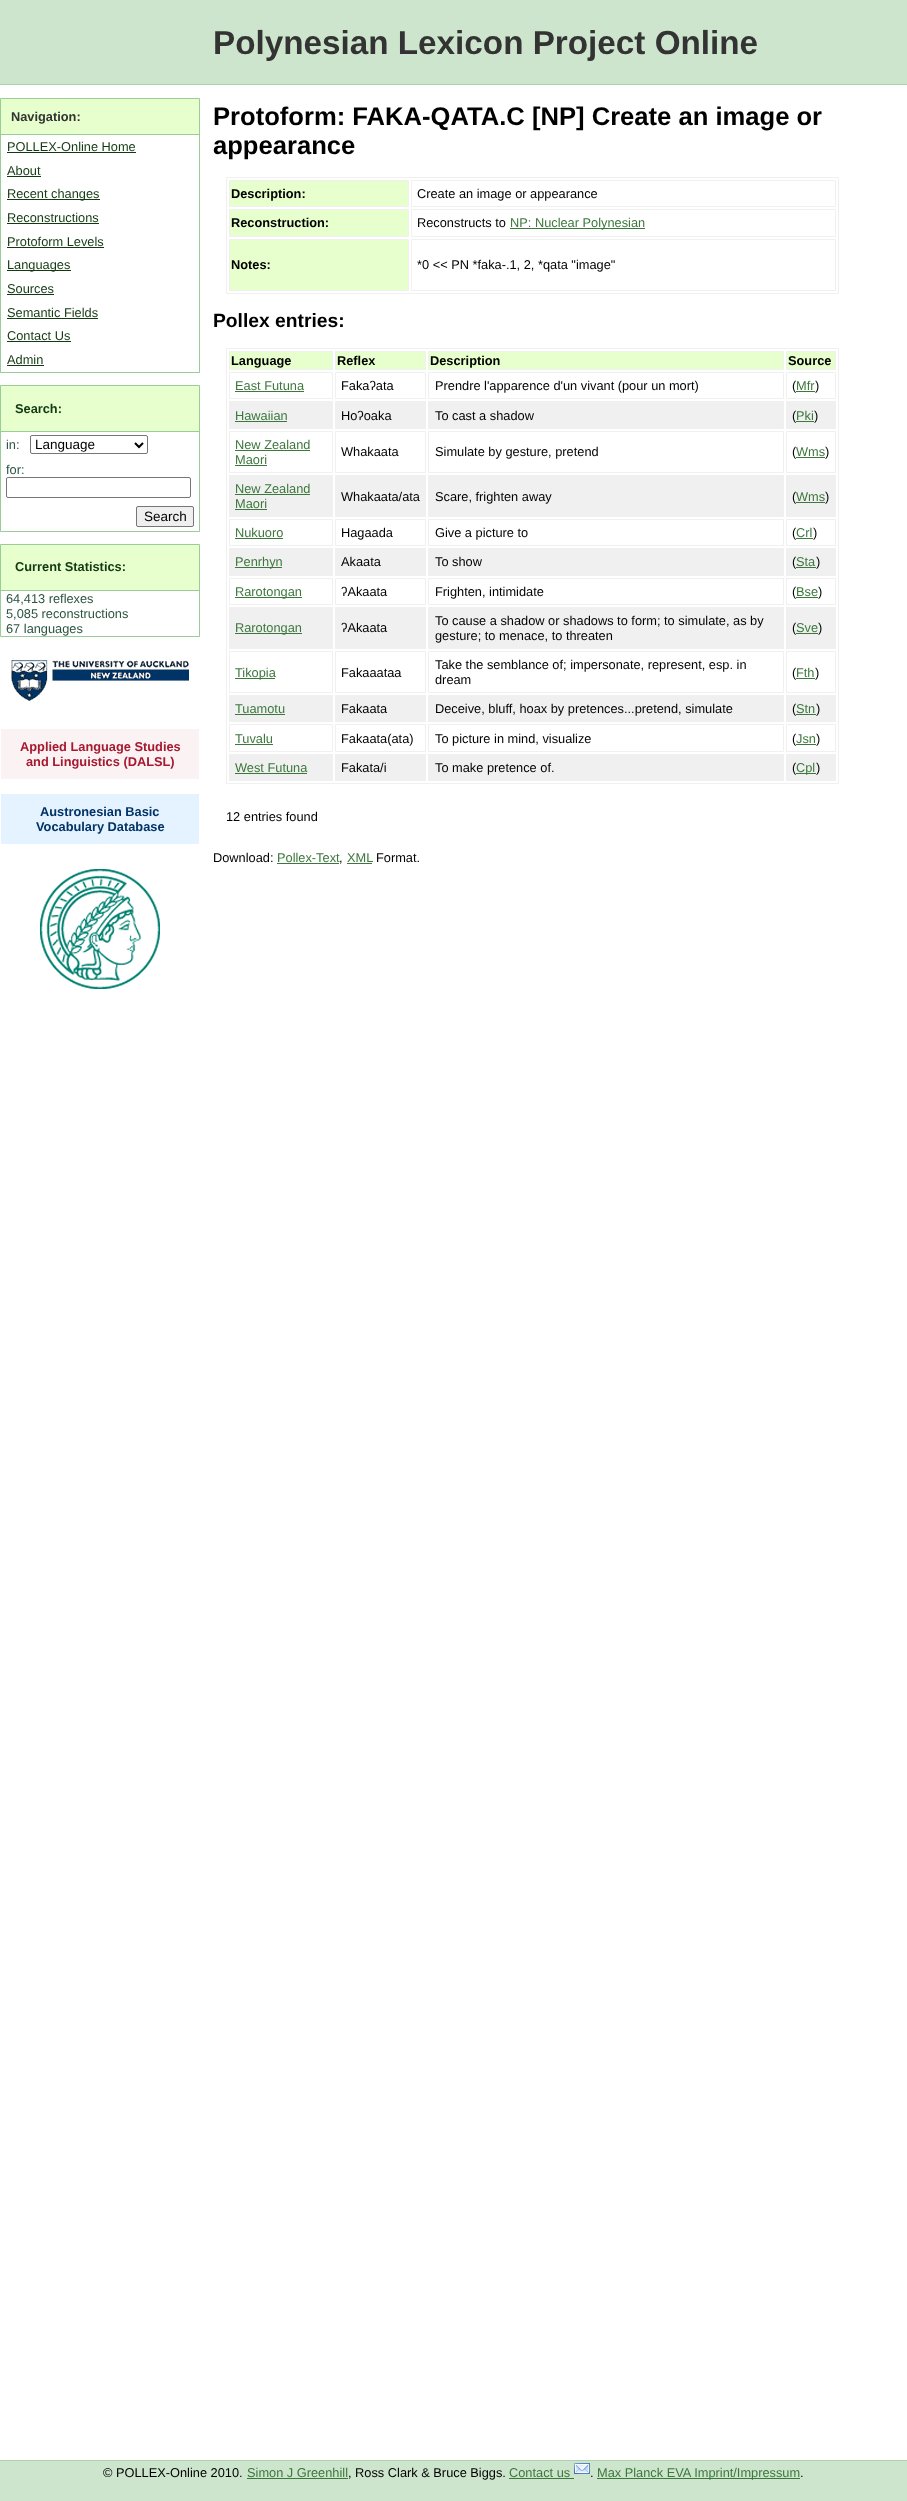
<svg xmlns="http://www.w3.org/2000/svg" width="907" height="2501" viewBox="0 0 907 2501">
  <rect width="100%" height="100%" fill="#fff"/>
  <path d="M0 0h907v84H0z" fill="#cde5cd"/>
  <path d="M0 84h907v1H0z" fill="#aad4aa"/>
  <path d="M0.5 98.5h199v274H0.5z" fill="none" stroke="#9c9"/>
  <path d="M1 99h198v35H1z" fill="#e6ffcc"/>
  <path d="M1 134h198v1H1z" fill="#9c9"/>
  <path d="M7 152h129v1H7z" fill="#133a13"/>
  <path d="M7 176h34v1H7z" fill="#133a13"/>
  <path d="M7 199h93v1H7z" fill="#133a13"/>
  <path d="M7 223h92v1H7z" fill="#133a13"/>
  <path d="M7 247h97v1H7z" fill="#133a13"/>
  <path d="M7 270h64v1H7z" fill="#133a13"/>
  <path d="M7 294h47v1H7z" fill="#133a13"/>
  <path d="M7 318h91v1H7z" fill="#133a13"/>
  <path d="M7 341h64v1H7z" fill="#133a13"/>
  <path d="M7 365h37v1H7z" fill="#133a13"/>
  <path d="M0.5 385.5h199v146H0.5z" fill="none" stroke="#9c9"/>
  <path d="M1 386h198v45H1z" fill="#e6ffcc"/>
  <path d="M1 431h198v1H1z" fill="#9c9"/>
  <rect x="30.5" y="435.5" width="117" height="18" rx="1.5" fill="none" stroke="#767676"/>
  <path d="M135 443L139 447L143 443" fill="none" stroke="#000" stroke-width="2"/>
  <rect x="6.5" y="477.5" width="184" height="20" rx="1.5" fill="none" stroke="#767676"/>
  <rect x="136.5" y="506.5" width="57" height="20" rx="1.5" fill="#efefef" stroke="#767676"/>
  <path d="M0.5 544.5h199v92H0.5z" fill="none" stroke="#9c9"/>
  <path d="M1 545h198v45H1z" fill="#e6ffcc"/>
  <path d="M1 590h198v1H1z" fill="#9c9"/>
  <image x="11" y="660" width="178" height="41" href="img/1.png"/>
  <path d="M1 729h198v50H1z" fill="#faf2f3"/>
  <path d="M1 794h198v50H1z" fill="#e5f2ff"/>
  <image x="40" y="869" width="120" height="120" href="img/2.png"/>
  <path d="M226.5 177.5h612v116H226.5z" fill="none" stroke="#f0f0f0"/>
  <path d="M229.5 180.5h179v26H229.5z" fill="#e6ffcc" stroke="#f0f0f0"/>
  <path d="M411.5 180.5h424v26H411.5z" fill="none" stroke="#f0f0f0"/>
  <path d="M229.5 209.5h179v27H229.5z" fill="#e6ffcc" stroke="#f0f0f0"/>
  <path d="M411.5 209.5h424v27H411.5z" fill="none" stroke="#f0f0f0"/>
  <path d="M510 228h135v1H510z" fill="#3c773c"/>
  <path d="M229.5 239.5h179v51H229.5z" fill="#e6ffcc" stroke="#f0f0f0"/>
  <path d="M411.5 239.5h424v51H411.5z" fill="none" stroke="#f0f0f0"/>
  <path d="M226.5 348.5h612v435H226.5z" fill="none" stroke="#f0f0f0"/>
  <path d="M229.5 351.5h103v18H229.5z" fill="#e6ffcc" stroke="#f0f0f0"/>
  <path d="M335.5 351.5h90v18H335.5z" fill="#e6ffcc" stroke="#f0f0f0"/>
  <path d="M428.5 351.5h355v18H428.5z" fill="#e6ffcc" stroke="#f0f0f0"/>
  <path d="M786.5 351.5h49v18H786.5z" fill="#e6ffcc" stroke="#f0f0f0"/>
  <path d="M229.5 372.5h103v26H229.5z" fill="none" stroke="#f0f0f0"/>
  <path d="M235 391h69v1H235z" fill="#3c773c"/>
  <path d="M335.5 372.5h90v26H335.5z" fill="none" stroke="#f0f0f0"/>
  <path d="M428.5 372.5h355v26H428.5z" fill="none" stroke="#f0f0f0"/>
  <path d="M786.5 372.5h49v26H786.5z" fill="none" stroke="#f0f0f0"/>
  <path d="M229 401h104v28H229z" fill="#f0f0f0"/>
  <path d="M235 421h52v1H235z" fill="#3c773c"/>
  <path d="M335 401h91v28H335z" fill="#f0f0f0"/>
  <path d="M428 401h356v28H428z" fill="#f0f0f0"/>
  <path d="M786 401h50v28H786z" fill="#f0f0f0"/>
  <path d="M229.5 431.5h103v41H229.5z" fill="none" stroke="#f0f0f0"/>
  <path d="M235 450h75v1H235z" fill="#3c773c"/>
  <path d="M235 465h32v1H235z" fill="#3c773c"/>
  <path d="M335.5 431.5h90v41H335.5z" fill="none" stroke="#f0f0f0"/>
  <path d="M428.5 431.5h355v41H428.5z" fill="none" stroke="#f0f0f0"/>
  <path d="M786.5 431.5h49v41H786.5z" fill="none" stroke="#f0f0f0"/>
  <path d="M229 475h104v42H229z" fill="#f0f0f0"/>
  <path d="M235 494h75v1H235z" fill="#3c773c"/>
  <path d="M235 509h32v1H235z" fill="#3c773c"/>
  <path d="M335 475h91v42H335z" fill="#f0f0f0"/>
  <path d="M428 475h356v42H428z" fill="#f0f0f0"/>
  <path d="M786 475h50v42H786z" fill="#f0f0f0"/>
  <path d="M229.5 519.5h103v26H229.5z" fill="none" stroke="#f0f0f0"/>
  <path d="M235 538h48v1H235z" fill="#3c773c"/>
  <path d="M335.5 519.5h90v26H335.5z" fill="none" stroke="#f0f0f0"/>
  <path d="M428.5 519.5h355v26H428.5z" fill="none" stroke="#f0f0f0"/>
  <path d="M786.5 519.5h49v26H786.5z" fill="none" stroke="#f0f0f0"/>
  <path d="M229 548h104v28H229z" fill="#f0f0f0"/>
  <path d="M235 567h47v1H235z" fill="#3c773c"/>
  <path d="M335 548h91v28H335z" fill="#f0f0f0"/>
  <path d="M428 548h356v28H428z" fill="#f0f0f0"/>
  <path d="M786 548h50v28H786z" fill="#f0f0f0"/>
  <path d="M229.5 578.5h103v26H229.5z" fill="none" stroke="#f0f0f0"/>
  <path d="M235 597h67v1H235z" fill="#3c773c"/>
  <path d="M335.5 578.5h90v26H335.5z" fill="none" stroke="#f0f0f0"/>
  <path d="M428.5 578.5h355v26H428.5z" fill="none" stroke="#f0f0f0"/>
  <path d="M786.5 578.5h49v26H786.5z" fill="none" stroke="#f0f0f0"/>
  <path d="M229 607h104v42H229z" fill="#f0f0f0"/>
  <path d="M235 633h67v1H235z" fill="#3c773c"/>
  <path d="M335 607h91v42H335z" fill="#f0f0f0"/>
  <path d="M428 607h356v42H428z" fill="#f0f0f0"/>
  <path d="M786 607h50v42H786z" fill="#f0f0f0"/>
  <path d="M229.5 651.5h103v41H229.5z" fill="none" stroke="#f0f0f0"/>
  <path d="M235 678h40v1H235z" fill="#3c773c"/>
  <path d="M335.5 651.5h90v41H335.5z" fill="none" stroke="#f0f0f0"/>
  <path d="M428.5 651.5h355v41H428.5z" fill="none" stroke="#f0f0f0"/>
  <path d="M786.5 651.5h49v41H786.5z" fill="none" stroke="#f0f0f0"/>
  <path d="M229 695h104v27H229z" fill="#f0f0f0"/>
  <path d="M235 714h50v1H235z" fill="#3c773c"/>
  <path d="M335 695h91v27H335z" fill="#f0f0f0"/>
  <path d="M428 695h356v27H428z" fill="#f0f0f0"/>
  <path d="M786 695h50v27H786z" fill="#f0f0f0"/>
  <path d="M229.5 724.5h103v27H229.5z" fill="none" stroke="#f0f0f0"/>
  <path d="M235 744h38v1H235z" fill="#3c773c"/>
  <path d="M335.5 724.5h90v27H335.5z" fill="none" stroke="#f0f0f0"/>
  <path d="M428.5 724.5h355v27H428.5z" fill="none" stroke="#f0f0f0"/>
  <path d="M786.5 724.5h49v27H786.5z" fill="none" stroke="#f0f0f0"/>
  <path d="M229 754h104v27H229z" fill="#f0f0f0"/>
  <path d="M235 773h72v1H235z" fill="#3c773c"/>
  <path d="M335 754h91v27H335z" fill="#f0f0f0"/>
  <path d="M428 754h356v27H428z" fill="#f0f0f0"/>
  <path d="M786 754h50v27H786z" fill="#f0f0f0"/>
  <path d="M277 863h62v1H277z" fill="#3c773c"/>
  <path d="M347 863h25v1H347z" fill="#3c773c"/>
  <path d="M0 2461h907v40H0z" fill="#cde5cd"/>
  <path d="M0 2460h907v1H0z" fill="#aad4aa"/>
  <path d="M247 2478h101v1H247z" fill="#3c773c"/>
  <path d="M509 2478h65v1H509z" fill="#3c773c"/>
  <image x="574" y="2463" width="16" height="11" href="img/3.png"/>
  <path d="M597 2478h203v1H597z" fill="#3c773c"/>
  <text x="213" y="54" font-family="Liberation Sans" font-size="33.25" font-weight="bold" fill="#333">Polynesian Lexicon Project Online</text>
  <text x="11" y="121" font-family="Liberation Sans" font-size="12.8" font-weight="bold" fill="#333">Navigation:</text>
  <g font-family="Liberation Sans" font-size="12.8" fill="#133a13">
    <text x="7" y="151">POLLEX-Online Home</text>
    <text x="7" y="175">About</text>
    <text x="7" y="198">Recent changes</text>
    <text x="7" y="222">Reconstructions</text>
    <text x="7" y="246">Protoform Levels</text>
    <text x="7" y="269">Languages</text>
    <text x="7" y="293">Sources</text>
    <text x="7" y="317">Semantic Fields</text>
    <text x="7" y="340">Contact Us</text>
    <text x="7" y="364">Admin</text>
  </g>
  <text x="15" y="413" font-family="Liberation Sans" font-size="12.8" font-weight="bold" fill="#133a13">Search:</text>
  <text x="6" y="449" font-family="Liberation Sans" font-size="12.8" fill="#2c5440">in:</text>
  <text x="35" y="449" font-family="Liberation Sans" font-size="13.5" fill="#000">Language</text>
  <text x="6" y="474" font-family="Liberation Sans" font-size="12.8" fill="#2c5440">for:</text>
  <text x="144" y="521" font-family="Liberation Sans" font-size="13.5" fill="#000">Search</text>
  <text x="15" y="571" font-family="Liberation Sans" font-size="12.8" font-weight="bold" fill="#133a13">Current Statistics:</text>
  <g font-family="Liberation Sans" font-size="12.8" fill="#2c5440">
    <text x="6" y="603">64,413 reflexes</text>
    <text x="6" y="618">5,085 reconstructions</text>
    <text x="6" y="633">67 languages</text>
  </g>
  <g font-family="Liberation Sans" font-size="12.8" font-weight="bold" fill="#a71930">
    <text x="20" y="751">Applied Language Studies</text>
    <text x="26" y="766">and Linguistics (DALSL)</text>
  </g>
  <g font-family="Liberation Sans" font-size="12.8" font-weight="bold" fill="#036">
    <text x="40" y="816">Austronesian Basic</text>
    <text x="36" y="831">Vocabulary Database</text>
  </g>
  <g font-family="Liberation Sans" font-size="25.6" font-weight="bold" fill="#000">
    <text x="213" y="125">Protoform: FAKA-QATA.C [NP] Create an image or</text>
    <text x="213" y="154">appearance</text>
  </g>
  <text x="231" y="198" font-family="Liberation Sans" font-size="12.8" font-weight="bold" fill="#000">Description:</text>
  <text x="417" y="198" font-family="Liberation Sans" font-size="12.8" fill="#000">Create an image or appearance</text>
  <text x="231" y="227" font-family="Liberation Sans" font-size="12.8" font-weight="bold" fill="#000">Reconstruction:</text>
  <text x="417" y="227" font-family="Liberation Sans" font-size="12.8" fill="#000">Reconstructs to</text>
  <text x="510" y="227" font-family="Liberation Sans" font-size="12.8" fill="#3c773c">NP: Nuclear Polynesian</text>
  <text x="231" y="269" font-family="Liberation Sans" font-size="12.8" font-weight="bold" fill="#000">Notes:</text>
  <text x="417" y="269" font-family="Liberation Sans" font-size="12.8" fill="#000">*0 &lt;&lt; PN *faka-.1, 2, *qata "image"</text>
  <text x="213" y="327" font-family="Liberation Sans" font-size="19.25" font-weight="bold" fill="#000">Pollex entries:</text>
  <g font-family="Liberation Sans" font-size="12.8" font-weight="bold" fill="#000">
    <text x="231" y="365">Language</text>
    <text x="337" y="365">Reflex</text>
    <text x="430" y="365">Description</text>
    <text x="788" y="365">Source</text>
  </g>
  <text x="235" y="390" font-family="Liberation Sans" font-size="12.8" fill="#3c773c">East Futuna</text>
  <g font-family="Liberation Sans" font-size="12.8" fill="#000">
    <text x="341" y="390">Fakaʔata</text>
    <text x="435" y="390">Prendre l'apparence d'un vivant (pour un mort)</text>
    <text x="792" y="390">(</text>
  </g>
  <text x="796" y="390" font-family="Liberation Sans" font-size="12.8" fill="#3c773c">Mfr</text>
  <path d="M796 391h19v1H796z" fill="#3c773c"/>
  <text x="815" y="390" font-family="Liberation Sans" font-size="12.8" fill="#000">)</text>
  <text x="235" y="420" font-family="Liberation Sans" font-size="12.8" fill="#3c773c">Hawaiian</text>
  <g font-family="Liberation Sans" font-size="12.8" fill="#000">
    <text x="341" y="420">Hoʔoaka</text>
    <text x="435" y="420">To cast a shadow</text>
    <text x="792" y="420">(</text>
  </g>
  <text x="796" y="420" font-family="Liberation Sans" font-size="12.8" fill="#3c773c">Pki</text>
  <path d="M796 421h18v1H796z" fill="#3c773c"/>
  <text x="814" y="420" font-family="Liberation Sans" font-size="12.8" fill="#000">)</text>
  <g font-family="Liberation Sans" font-size="12.8" fill="#3c773c">
    <text x="235" y="449">New Zealand</text>
    <text x="235" y="464">Maori</text>
  </g>
  <g font-family="Liberation Sans" font-size="12.8" fill="#000">
    <text x="341" y="456">Whakaata</text>
    <text x="435" y="456">Simulate by gesture, pretend</text>
    <text x="792" y="456">(</text>
  </g>
  <text x="796" y="456" font-family="Liberation Sans" font-size="12.8" fill="#3c773c">Wms</text>
  <path d="M796 457h29v1H796z" fill="#3c773c"/>
  <text x="825" y="456" font-family="Liberation Sans" font-size="12.8" fill="#000">)</text>
  <g font-family="Liberation Sans" font-size="12.8" fill="#3c773c">
    <text x="235" y="493">New Zealand</text>
    <text x="235" y="508">Maori</text>
  </g>
  <g font-family="Liberation Sans" font-size="12.8" fill="#000">
    <text x="341" y="501">Whakaata/ata</text>
    <text x="435" y="501">Scare, frighten away</text>
    <text x="792" y="501">(</text>
  </g>
  <text x="796" y="501" font-family="Liberation Sans" font-size="12.8" fill="#3c773c">Wms</text>
  <path d="M796 502h29v1H796z" fill="#3c773c"/>
  <text x="825" y="501" font-family="Liberation Sans" font-size="12.8" fill="#000">)</text>
  <text x="235" y="537" font-family="Liberation Sans" font-size="12.8" fill="#3c773c">Nukuoro</text>
  <g font-family="Liberation Sans" font-size="12.8" fill="#000">
    <text x="341" y="537">Hagaada</text>
    <text x="435" y="537">Give a picture to</text>
    <text x="792" y="537">(</text>
  </g>
  <text x="796" y="537" font-family="Liberation Sans" font-size="12.8" fill="#3c773c">Crl</text>
  <path d="M796 538h17v1H796z" fill="#3c773c"/>
  <text x="813" y="537" font-family="Liberation Sans" font-size="12.8" fill="#000">)</text>
  <text x="235" y="566" font-family="Liberation Sans" font-size="12.8" fill="#3c773c">Penrhyn</text>
  <g font-family="Liberation Sans" font-size="12.8" fill="#000">
    <text x="341" y="566">Akaata</text>
    <text x="435" y="566">To show</text>
    <text x="792" y="566">(</text>
  </g>
  <text x="796" y="566" font-family="Liberation Sans" font-size="12.8" fill="#3c773c">Sta</text>
  <path d="M796 567h20v1H796z" fill="#3c773c"/>
  <text x="816" y="566" font-family="Liberation Sans" font-size="12.8" fill="#000">)</text>
  <text x="235" y="596" font-family="Liberation Sans" font-size="12.8" fill="#3c773c">Rarotongan</text>
  <g font-family="Liberation Sans" font-size="12.8" fill="#000">
    <text x="341" y="596">ʔAkaata</text>
    <text x="435" y="596">Frighten, intimidate</text>
    <text x="792" y="596">(</text>
  </g>
  <text x="796" y="596" font-family="Liberation Sans" font-size="12.8" fill="#3c773c">Bse</text>
  <path d="M796 597h22v1H796z" fill="#3c773c"/>
  <text x="818" y="596" font-family="Liberation Sans" font-size="12.8" fill="#000">)</text>
  <text x="235" y="632" font-family="Liberation Sans" font-size="12.8" fill="#3c773c">Rarotongan</text>
  <g font-family="Liberation Sans" font-size="12.8" fill="#000">
    <text x="341" y="632">ʔAkaata</text>
    <text x="435" y="625">To cause a shadow or shadows to form; to simulate, as by</text>
    <text x="435" y="640">gesture; to menace, to threaten</text>
    <text x="792" y="632">(</text>
  </g>
  <text x="796" y="632" font-family="Liberation Sans" font-size="12.8" fill="#3c773c">Sve</text>
  <path d="M796 633h22v1H796z" fill="#3c773c"/>
  <text x="818" y="632" font-family="Liberation Sans" font-size="12.8" fill="#000">)</text>
  <text x="235" y="677" font-family="Liberation Sans" font-size="12.8" fill="#3c773c">Tikopia</text>
  <g font-family="Liberation Sans" font-size="12.8" fill="#000">
    <text x="341" y="677">Fakaaataa</text>
    <text x="435" y="669">Take the semblance of; impersonate, represent, esp. in</text>
    <text x="435" y="684">dream</text>
    <text x="792" y="677">(</text>
  </g>
  <text x="796" y="677" font-family="Liberation Sans" font-size="12.8" fill="#3c773c">Fth</text>
  <path d="M796 678h19v1H796z" fill="#3c773c"/>
  <text x="815" y="677" font-family="Liberation Sans" font-size="12.8" fill="#000">)</text>
  <text x="235" y="713" font-family="Liberation Sans" font-size="12.8" fill="#3c773c">Tuamotu</text>
  <g font-family="Liberation Sans" font-size="12.8" fill="#000">
    <text x="341" y="713">Fakaata</text>
    <text x="435" y="713">Deceive, bluff, hoax by pretences...pretend, simulate</text>
    <text x="792" y="713">(</text>
  </g>
  <text x="796" y="713" font-family="Liberation Sans" font-size="12.8" fill="#3c773c">Stn</text>
  <path d="M796 714h20v1H796z" fill="#3c773c"/>
  <text x="816" y="713" font-family="Liberation Sans" font-size="12.8" fill="#000">)</text>
  <text x="235" y="743" font-family="Liberation Sans" font-size="12.8" fill="#3c773c">Tuvalu</text>
  <g font-family="Liberation Sans" font-size="12.8" fill="#000">
    <text x="341" y="743">Fakaata(ata)</text>
    <text x="435" y="743">To picture in mind, visualize</text>
    <text x="792" y="743">(</text>
  </g>
  <text x="796" y="743" font-family="Liberation Sans" font-size="12.8" fill="#3c773c">Jsn</text>
  <path d="M796 744h20v1H796z" fill="#3c773c"/>
  <text x="816" y="743" font-family="Liberation Sans" font-size="12.8" fill="#000">)</text>
  <text x="235" y="772" font-family="Liberation Sans" font-size="12.8" fill="#3c773c">West Futuna</text>
  <g font-family="Liberation Sans" font-size="12.8" fill="#000">
    <text x="341" y="772">Fakata/i</text>
    <text x="435" y="772">To make pretence of.</text>
    <text x="792" y="772">(</text>
  </g>
  <path d="M796 773h20v1H796z" fill="#3c773c"/>
  <text x="796" y="772" font-family="Liberation Sans" font-size="12.8" fill="#3c773c">Cpl</text>
  <g font-family="Liberation Sans" font-size="12.8" fill="#000">
    <text x="816" y="772">)</text>
    <text x="226" y="821">12 entries found</text>
    <text x="213" y="862">Download:</text>
  </g>
  <text x="277" y="862" font-family="Liberation Sans" font-size="12.8" fill="#3c773c">Pollex-Text</text>
  <text x="339" y="862" font-family="Liberation Sans" font-size="12.8" fill="#000">,</text>
  <text x="347" y="862" font-family="Liberation Sans" font-size="12.8" fill="#3c773c">XML</text>
  <g font-family="Liberation Sans" font-size="12.8" fill="#000">
    <text x="376" y="862">Format.</text>
    <text x="103" y="2477">© POLLEX-Online 2010.</text>
  </g>
  <text x="247" y="2477" font-family="Liberation Sans" font-size="12.8" fill="#3c773c">Simon J Greenhill</text>
  <text x="348" y="2477" font-family="Liberation Sans" font-size="12.8" fill="#000">, Ross Clark &amp; Bruce Biggs.</text>
  <text x="509" y="2477" font-family="Liberation Sans" font-size="12.8" fill="#3c773c">Contact us</text>
  <text x="590" y="2477" font-family="Liberation Sans" font-size="12.8" fill="#000">.</text>
  <text x="597" y="2477" font-family="Liberation Sans" font-size="12.8" fill="#3c773c">Max Planck EVA Imprint/Impressum</text>
  <text x="800" y="2477" font-family="Liberation Sans" font-size="12.8" fill="#000">.</text>
</svg>
